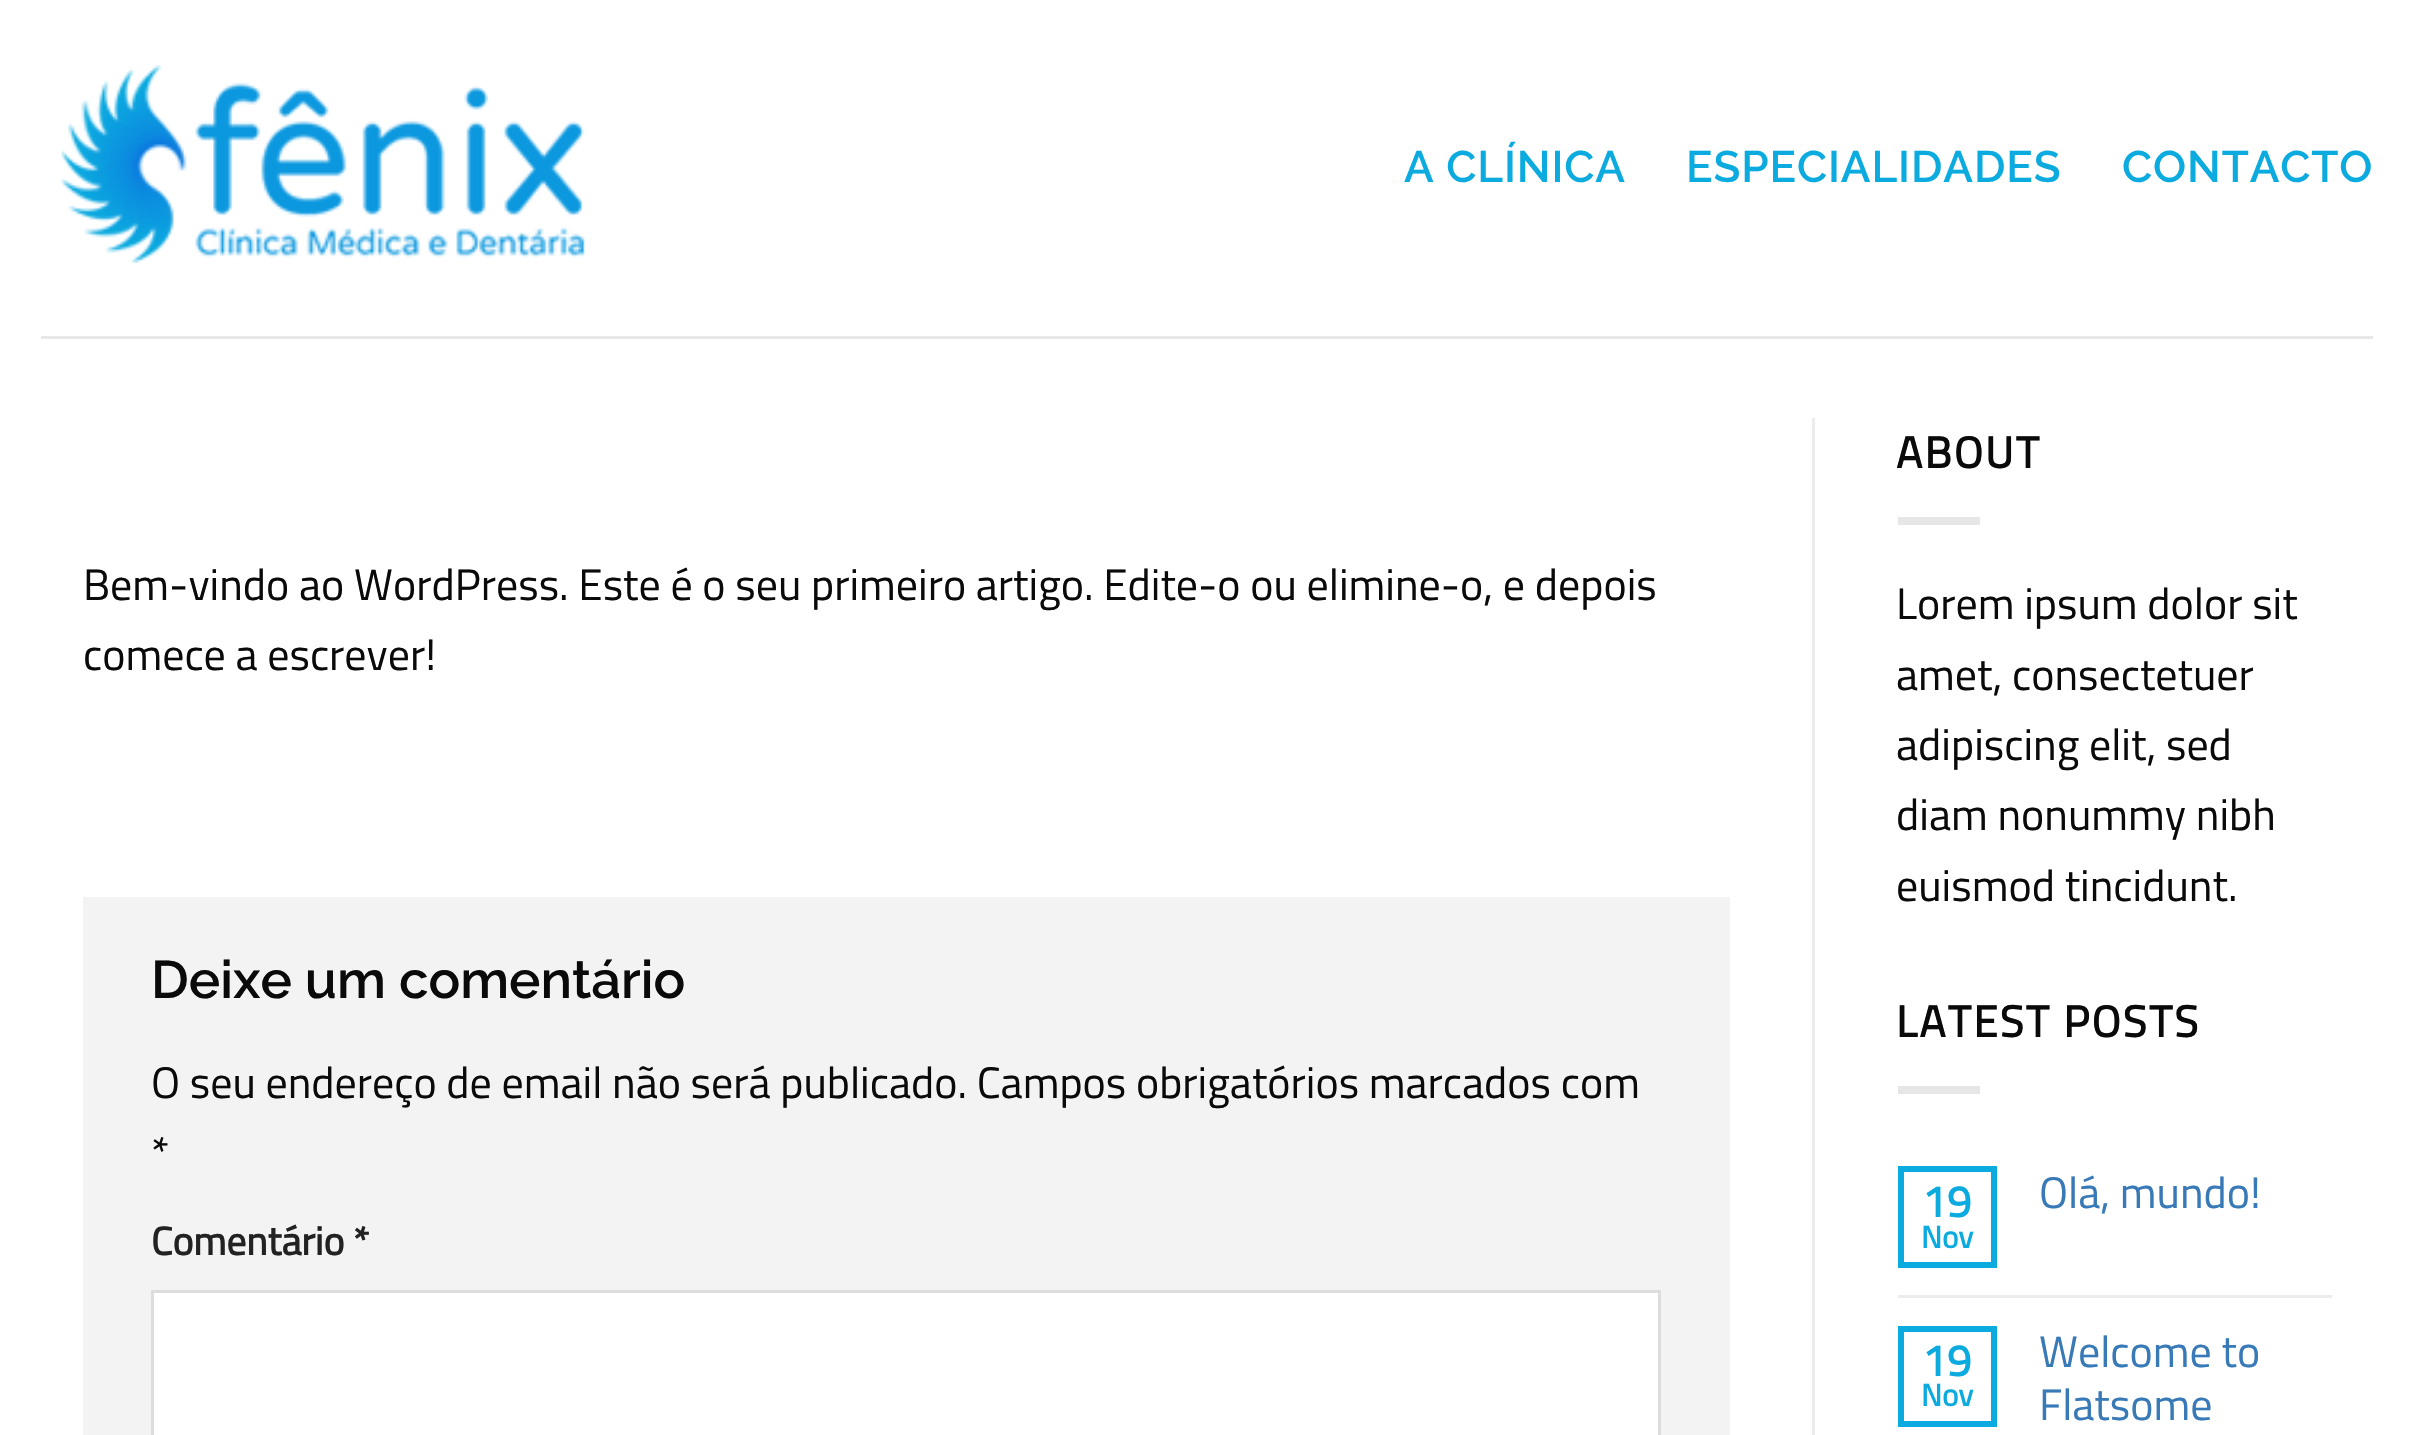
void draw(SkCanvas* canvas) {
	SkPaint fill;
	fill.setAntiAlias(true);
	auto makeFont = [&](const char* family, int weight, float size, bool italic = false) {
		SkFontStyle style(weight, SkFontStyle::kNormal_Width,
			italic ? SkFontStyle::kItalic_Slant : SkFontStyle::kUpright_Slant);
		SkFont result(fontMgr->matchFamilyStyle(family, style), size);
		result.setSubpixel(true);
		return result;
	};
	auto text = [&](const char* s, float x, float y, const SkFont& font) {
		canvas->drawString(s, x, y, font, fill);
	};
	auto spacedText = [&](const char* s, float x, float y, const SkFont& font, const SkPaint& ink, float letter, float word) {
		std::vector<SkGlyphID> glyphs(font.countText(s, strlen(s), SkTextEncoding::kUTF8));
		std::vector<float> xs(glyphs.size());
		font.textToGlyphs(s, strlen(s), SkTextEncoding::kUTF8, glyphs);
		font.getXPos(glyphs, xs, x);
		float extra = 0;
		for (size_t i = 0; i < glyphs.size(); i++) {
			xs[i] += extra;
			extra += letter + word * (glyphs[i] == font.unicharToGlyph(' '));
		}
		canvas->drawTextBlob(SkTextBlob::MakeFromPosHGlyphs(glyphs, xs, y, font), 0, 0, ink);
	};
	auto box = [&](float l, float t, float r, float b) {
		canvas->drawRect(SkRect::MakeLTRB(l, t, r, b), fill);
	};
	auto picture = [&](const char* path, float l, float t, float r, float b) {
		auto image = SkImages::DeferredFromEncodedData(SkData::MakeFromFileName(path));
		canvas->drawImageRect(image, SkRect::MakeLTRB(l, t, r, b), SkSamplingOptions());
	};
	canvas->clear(0xFFFFFFFF);
	picture("image0.png", 61, 65, 585, 264);
	fill.setColor(0xFFE7E7E7);
	box(41, 336, 2373, 339);
	fill.setColor(0xFFF3F3F3);
	box(83, 897, 1730, 1435);
	fill.setColor(0xFFFFFFFF);
	canvas->drawRect(SkRect::MakeLTRB(152.5f, 1291.5f, 1659.5f, 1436.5f), fill);
	fill.setStyle(SkPaint::kStroke_Style);
	fill.setStrokeWidth(3);
	fill.setColor(0xFFDDDDDD);
	canvas->drawRect(SkRect::MakeLTRB(152.5f, 1291.5f, 1659.5f, 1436.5f), fill);
	fill.setStyle(SkPaint::kFill_Style);
	fill.setColor(0xFFECECEC);
	box(1812, 418, 1815, 1435);
	fill.setColor(0xFFE6E6E6);
	box(1898, 517, 1980, 525);
	box(1898, 1086, 1980, 1094);
	fill.setStyle(SkPaint::kStroke_Style);
	fill.setStrokeWidth(6);
	fill.setColor(0xFF0BABDF);
	canvas->drawRect(SkRect::MakeLTRB(1901, 1169, 1994, 1265), fill);
	fill.setStyle(SkPaint::kFill_Style);
	fill.setColor(0xFFECECEC);
	box(1898, 1295, 2332, 1298);
	fill.setStyle(SkPaint::kStroke_Style);
	fill.setColor(0xFF0BABDF);
	canvas->drawRect(SkRect::MakeLTRB(1901, 1329, 1994, 1424), fill);
	auto font1 = makeFont("Raleway", 600, 44);
	fill.setStyle(SkPaint::kFill_Style);
	spacedText("A CLÍNICA", 1404, 182, font1, fill, 0.9f, 0);
	spacedText("ESPECIALIDADES", 1686, 182, font1, fill, 0.9f, 0);
	spacedText("CONTACTO", 2122, 182, font1, fill, 0.9f, 0);
	auto font2 = makeFont("Titillium Web", 400, 44);
	fill.setColor(0xFF0A0A0A);
	text("Bem-vindo ao WordPress. Este é o seu primeiro artigo. Edite-o ou elimine-o, e depois", 83, 600, font2);
	text("comece a escrever!", 83, 670, font2);
	auto font3 = makeFont("Raleway", 600, 52.75f);
	text("Deixe um comentário", 151, 998, font3);
	text("O seu endereço de email não será publicado. Campos obrigatórios marcados com", 151, 1098, font2);
	text("*", 151, 1168, font2);
	auto font4 = makeFont("Titillium Web", 700, 39.5f);
	fill.setColor(0xFF222222);
	text("Comentário *", 151, 1255, font4);
	auto font5 = makeFont("Titillium Web", 700, 44);
	fill.setColor(0xFF0A0A0A);
	spacedText("ABOUT", 1896, 468, font5, fill, 2.25f, 0);
	text("Lorem ipsum dolor sit", 1896, 619, font2);
	text("amet, consectetuer", 1896, 690, font2);
	text("adipiscing elit, sed", 1896, 760, font2);
	text("diam nonummy nibh", 1896, 830, font2);
	text("euismod tincidunt.", 1896, 901, font2);
	spacedText("LATEST POSTS", 1896, 1037, font5, fill, 2.25f, 0);
	fill.setColor(0xFF0BABDF);
	text("19", 1922, 1217, font5);
	auto font6 = makeFont("Titillium Web", 700, 31);
	text("Nov", 1921, 1248, font6);
	fill.setColor(0xFF3879B7);
	text("Olá, mundo!", 2039, 1208, font2);
	fill.setColor(0xFF0BABDF);
	text("19", 1922, 1376, font5);
	text("Nov", 1921, 1406, font6);
	fill.setColor(0xFF3879B7);
	text("Welcome to", 2039, 1367, font2);
	text("Flatsome", 2039, 1420, font2);
}
